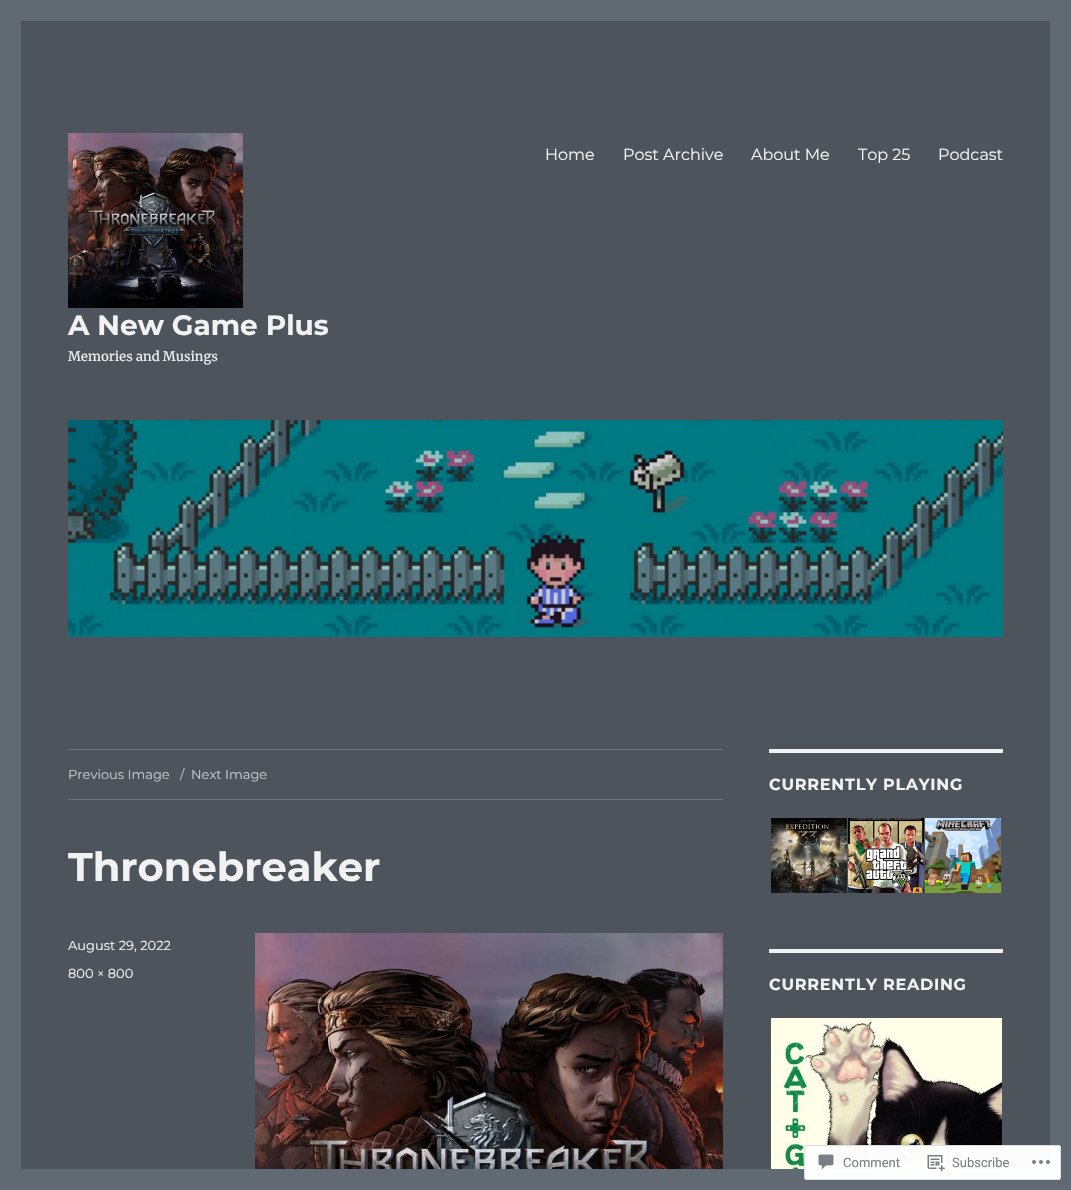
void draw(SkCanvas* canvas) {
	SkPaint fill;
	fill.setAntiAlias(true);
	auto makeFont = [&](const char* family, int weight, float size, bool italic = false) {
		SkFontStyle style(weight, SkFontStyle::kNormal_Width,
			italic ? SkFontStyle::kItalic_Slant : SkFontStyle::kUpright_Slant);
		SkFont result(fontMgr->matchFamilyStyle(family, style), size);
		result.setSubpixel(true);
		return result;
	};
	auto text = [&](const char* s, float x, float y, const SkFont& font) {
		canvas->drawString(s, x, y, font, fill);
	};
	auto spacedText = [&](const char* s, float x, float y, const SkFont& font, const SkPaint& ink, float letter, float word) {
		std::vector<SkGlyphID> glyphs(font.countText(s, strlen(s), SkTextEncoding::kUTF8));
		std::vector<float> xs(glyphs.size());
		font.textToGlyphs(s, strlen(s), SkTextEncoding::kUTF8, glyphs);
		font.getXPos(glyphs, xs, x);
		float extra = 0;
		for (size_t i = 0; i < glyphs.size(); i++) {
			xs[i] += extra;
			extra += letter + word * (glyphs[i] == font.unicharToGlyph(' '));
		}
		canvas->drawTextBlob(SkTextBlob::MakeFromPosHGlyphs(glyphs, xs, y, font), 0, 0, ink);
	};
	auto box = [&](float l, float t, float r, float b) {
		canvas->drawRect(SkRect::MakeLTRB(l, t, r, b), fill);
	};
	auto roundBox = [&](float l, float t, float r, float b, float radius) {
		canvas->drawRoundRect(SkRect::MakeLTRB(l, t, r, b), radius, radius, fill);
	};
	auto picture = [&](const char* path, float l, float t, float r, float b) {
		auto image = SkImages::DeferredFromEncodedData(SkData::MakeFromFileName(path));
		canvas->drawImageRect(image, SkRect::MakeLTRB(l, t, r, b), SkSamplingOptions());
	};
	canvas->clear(0xFF616A73);
	fill.setColor(0xFF4D545C);
	box(21, 21, 1050, 1169);
	picture("image0.png", 68, 133, 243, 308);
	picture("image1.png", 68, 420, 1003, 637);
	fill.setColor(0xFF6E747A);
	box(68, 749, 723, 750);
	box(68, 799, 723, 800);
	picture("image2.png", 255, 933, 723, 1169);
	fill.setColor(0xFFF2F2F2);
	box(769, 749, 1003, 753);
	picture("image3.png", 771, 818, 847, 893);
	picture("image4.png", 848, 818, 924, 893);
	picture("image5.png", 925, 818, 1001, 893);
	box(769, 949, 1003, 953);
	picture("image6.png", 771, 1018, 1002, 1169);
	fill.setColor(0xFAFFFFFF);
	roundBox(804, 1145, 1061, 1180, 3);
	fill.setStyle(SkPaint::kStroke_Style);
	fill.setStrokeWidth(1);
	fill.setColor(0xFADCDCDE);
	canvas->drawRoundRect(SkRect::MakeLTRB(804.5f, 1145.5f, 1060.5f, 1179.5f), 2.5f, 2.5f, fill);
	picture("image7.png", 818, 1154, 834, 1170);
	picture("image8.png", 927, 1155, 945, 1172);
	picture("image9.png", 1032, 1160, 1050, 1164);
	auto font1 = makeFont("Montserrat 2", 100, 16);
	fill.setStyle(SkPaint::kFill_Style);
	fill.setColor(0xFFF2F2F2);
	text("Home", 545, 160, font1);
	text("Post Archive", 623, 160, font1);
	text("About Me", 751, 160, font1);
	text("Top 25", 858, 160, font1);
	text("Podcast", 938, 160, font1);
	auto font2 = makeFont("Montserrat", 100, 28);
	text("A New Game Plus", 68, 335, font2);
	auto font3 = makeFont("Merriweather", 400, 13);
	text("Memories and Musings", 68, 361, font3);
	auto font4 = makeFont("Montserrat 2", 100, 13);
	fill.setColor(0xFFC7C7C7);
	text("Previous Image", 68, 779, font4);
	fill.setColor(0xFFC1C3C5);
	text("/", 180, 779, font4);
	fill.setColor(0xFFC7C7C7);
	text("Next Image", 191, 779, font4);
	auto font5 = makeFont("Montserrat", 100, 40);
	fill.setColor(0xFFF2F2F2);
	text("Thronebreaker", 68, 881, font5);
	text("August 29, 2022", 68, 950, font4);
	text("800 × 800", 68, 978, font4);
	auto font6 = makeFont("Montserrat", 100, 16);
	spacedText("CURRENTLY PLAYING", 769, 790, font6, fill, 0.75f, 0);
	spacedText("CURRENTLY READING", 769, 990, font6, fill, 0.75f, 0);
	auto font7 = makeFont("Roboto", 400, 13);
	fill.setColor(0xFF7B7F84);
	text("Comment", 843, 1167, font7);
	text("Subscribe", 952, 1167, font7);
}
